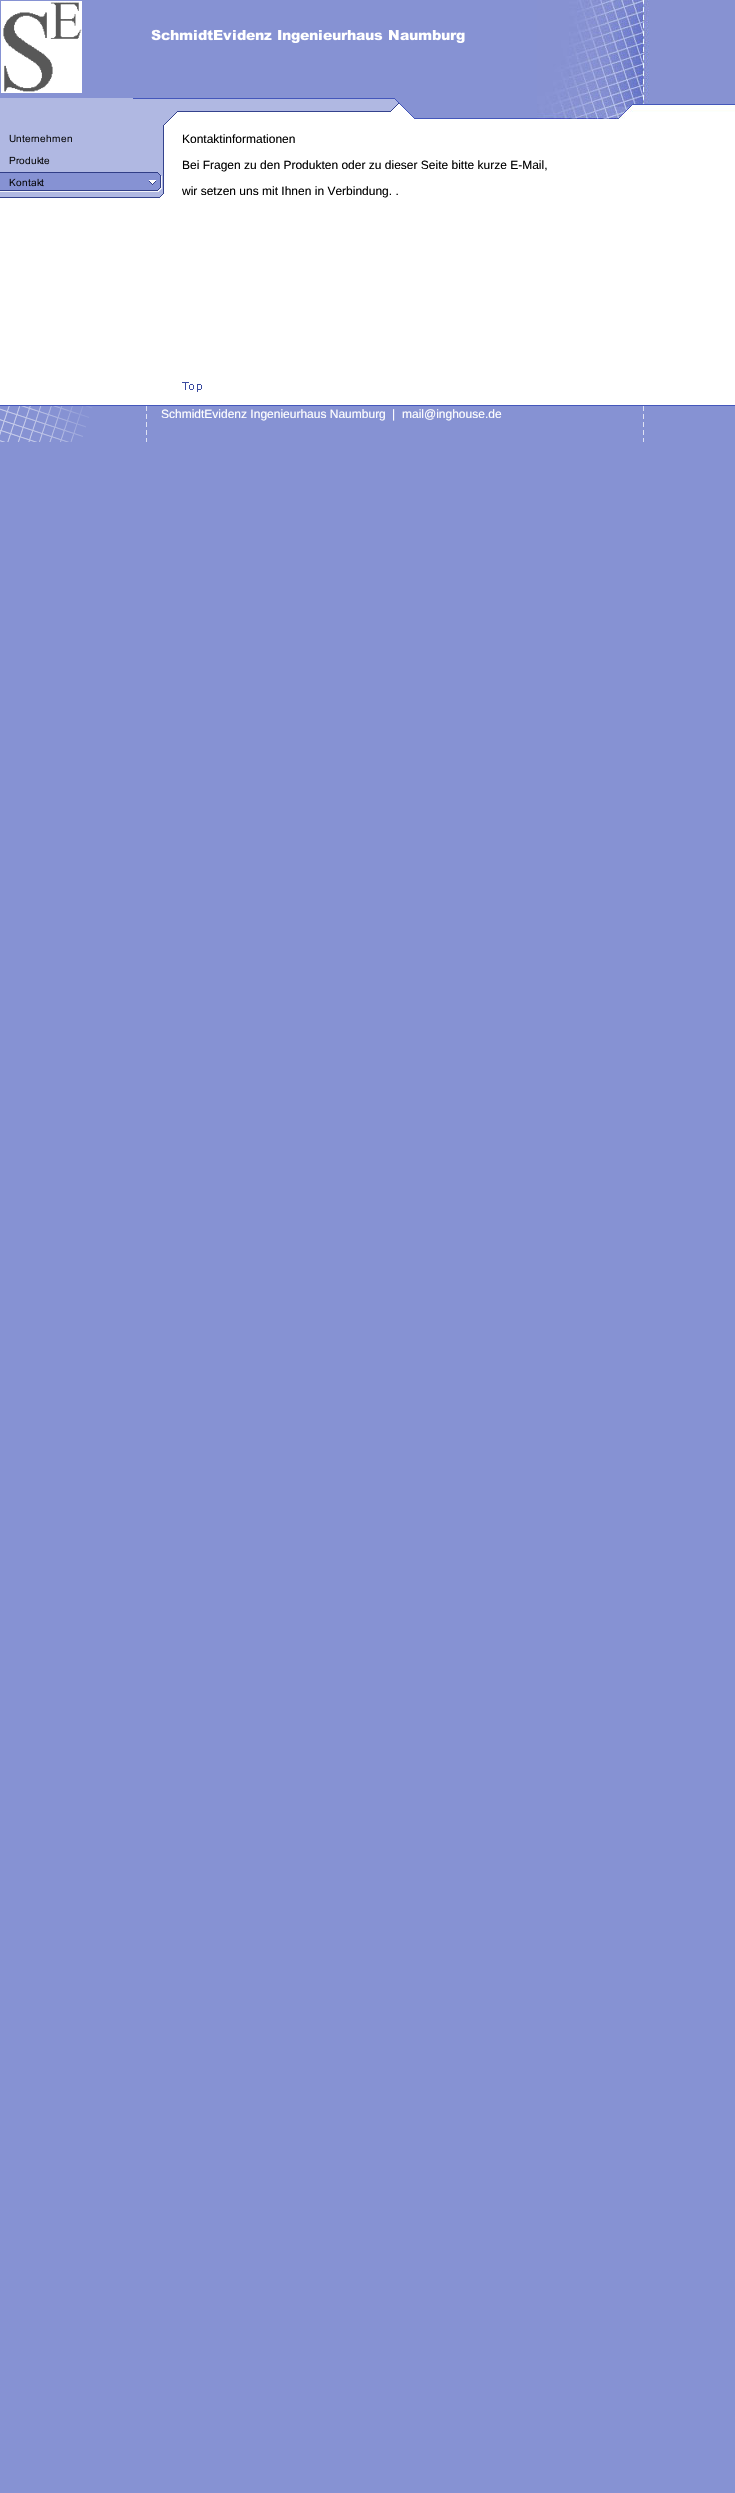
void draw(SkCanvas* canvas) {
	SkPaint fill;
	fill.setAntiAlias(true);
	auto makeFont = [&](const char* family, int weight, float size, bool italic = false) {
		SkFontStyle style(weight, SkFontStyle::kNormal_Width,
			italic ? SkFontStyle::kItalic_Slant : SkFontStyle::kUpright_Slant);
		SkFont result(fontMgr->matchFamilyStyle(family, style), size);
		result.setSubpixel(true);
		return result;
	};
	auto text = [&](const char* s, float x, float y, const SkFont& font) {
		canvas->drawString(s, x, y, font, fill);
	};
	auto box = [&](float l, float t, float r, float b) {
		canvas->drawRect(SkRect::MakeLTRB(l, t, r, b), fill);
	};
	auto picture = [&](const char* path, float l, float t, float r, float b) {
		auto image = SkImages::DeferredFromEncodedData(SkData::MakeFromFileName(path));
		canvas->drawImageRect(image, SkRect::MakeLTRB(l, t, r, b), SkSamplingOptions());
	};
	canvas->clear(0xFF8692D3);
	fill.setColor(0xFFB0B8E2);
	box(0, 98, 133, 119);
	picture("image0.png", 1, 1, 82, 93);
	fill.setColor(0xFF4457BB);
	box(465, 118, 537, 119);
	picture("image1.png", 133, 29, 465, 119);
	picture("image2.png", 537, 0, 735, 119);
	fill.setColor(0xFFFFFFFF);
	box(0, 119, 735, 405);
	picture("image3.png", 0, 119, 170, 128);
	picture("image4.png", 0, 128, 164, 150);
	picture("image5.png", 0, 150, 164, 172);
	picture("image6.png", 0, 172, 164, 194);
	picture("image7.png", 0, 194, 163, 198);
	picture("image8.png", 182, 382, 202, 392);
	fill.setColor(0xFF4457BB);
	box(0, 405, 735, 406);
	picture("image9.png", 0, 406, 147, 442);
	picture("image10.png", 643, 406, 644, 442);
	auto font1 = makeFont("Liberation Sans", 400, 12);
	fill.setColor(0xFF000000);
	text("Kontaktinformationen", 182, 143, font1);
	text("Bei Fragen zu den Produkten oder zu dieser Seite bitte kurze E-Mail,", 182, 169, font1);
	text("wir setzen uns mit Ihnen in Verbindung. .", 182, 195, font1);
	fill.setColor(0xFFFFFFFF);
	text("SchmidtEvidenz Ingenieurhaus Naumburg", 161, 418, font1);
	text("|", 392, 418, font1);
	text("mail@inghouse.de", 402, 418, font1);
}
